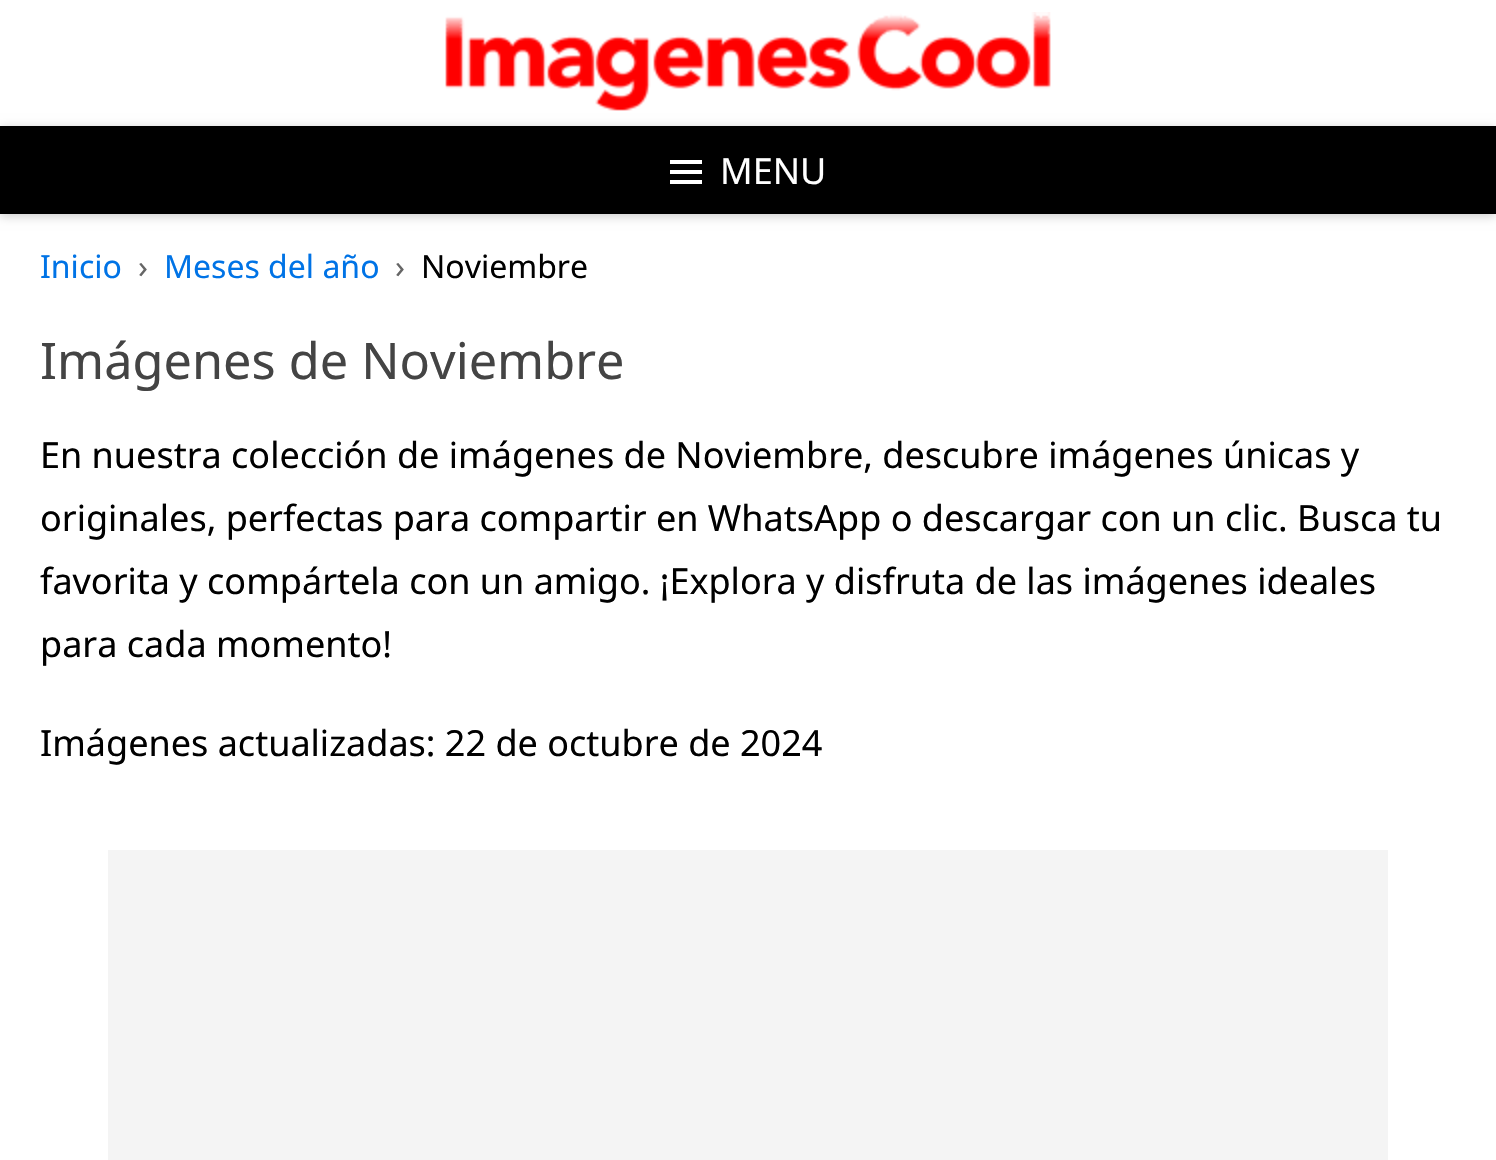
void draw(SkCanvas* canvas) {
	SkPaint fill;
	fill.setAntiAlias(true);
	auto makeFont = [&](const char* family, int weight, float size, bool italic = false) {
		SkFontStyle style(weight, SkFontStyle::kNormal_Width,
			italic ? SkFontStyle::kItalic_Slant : SkFontStyle::kUpright_Slant);
		SkFont result(fontMgr->matchFamilyStyle(family, style), size);
		result.setSubpixel(true);
		return result;
	};
	auto text = [&](const char* s, float x, float y, const SkFont& font) {
		canvas->drawString(s, x, y, font, fill);
	};
	auto box = [&](float l, float t, float r, float b) {
		canvas->drawRect(SkRect::MakeLTRB(l, t, r, b), fill);
	};
	auto picture = [&](const char* path, float l, float t, float r, float b) {
		auto image = SkImages::DeferredFromEncodedData(SkData::MakeFromFileName(path));
		canvas->drawImageRect(image, SkRect::MakeLTRB(l, t, r, b), SkSamplingOptions());
	};
	canvas->clear(0xFFFFFFFF);
	picture("image0.png", 445, 12, 1051, 111);
	fill.setColor(0x33000000);
	fill.setMaskFilter(SkMaskFilter::MakeBlur(kNormal_SkBlurStyle, 5));
	canvas->drawRect(SkRect::MakeLTRB(0, 128, 1496, 216), fill);
	fill.setMaskFilter(nullptr);
	fill.setColor(0xFF000000);
	box(0, 126, 1496, 214);
	picture("image1.png", 670, 160, 702, 184);
	fill.setColor(0xFFF4F4F4);
	box(108, 850, 1388, 1160);
	auto font1 = makeFont("Noto Sans", 400, 36);
	fill.setColor(0xFFFFFFFF);
	text("MENU", 720, 184, font1);
	auto font2 = makeFont("Noto Sans", 400, 32);
	fill.setColor(0xFF0073E6);
	text("Inicio", 40, 278, font2);
	fill.setColor(0xFF666666);
	text("›", 138, 278, font2);
	fill.setColor(0xFF0073E6);
	text("Meses del año", 164, 278, font2);
	fill.setColor(0xFF666666);
	text("›", 395, 278, font2);
	fill.setColor(0xFF000000);
	text("Noviembre", 421, 278, font2);
	auto font3 = makeFont("Noto Sans", 400, 50.4f);
	fill.setColor(0xFF444444);
	text("Imágenes de Noviembre", 40, 379, font3);
	fill.setColor(0xFF000000);
	text("En nuestra colección de imágenes de Noviembre, descubre imágenes únicas y", 40, 468, font1);
	text("originales, perfectas para compartir en WhatsApp o descargar con un clic. Busca tu", 40, 531, font1);
	text("favorita y compártela con un amigo. ¡Explora y disfruta de las imágenes ideales", 40, 594, font1);
	text("para cada momento!", 40, 657, font1);
	text("Imágenes actualizadas: 22 de octubre de 2024", 40, 756, font1);
}
